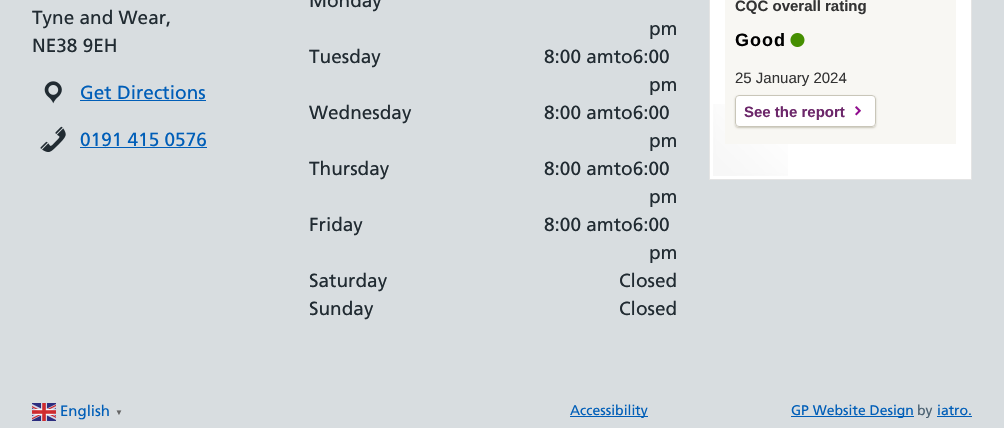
void draw(SkCanvas* canvas) {
	SkPaint fill;
	fill.setAntiAlias(true);
	auto makeFont = [&](const char* family, int weight, float size, bool italic = false) {
		SkFontStyle style(weight, SkFontStyle::kNormal_Width,
			italic ? SkFontStyle::kItalic_Slant : SkFontStyle::kUpright_Slant);
		SkFont result(fontMgr->matchFamilyStyle(family, style), size);
		result.setSubpixel(true);
		return result;
	};
	auto text = [&](const char* s, float x, float y, const SkFont& font) {
		canvas->drawString(s, x, y, font, fill);
	};
	auto spacedText = [&](const char* s, float x, float y, const SkFont& font, const SkPaint& ink, float letter, float word) {
		std::vector<SkGlyphID> glyphs(font.countText(s, strlen(s), SkTextEncoding::kUTF8));
		std::vector<float> xs(glyphs.size());
		font.textToGlyphs(s, strlen(s), SkTextEncoding::kUTF8, glyphs);
		font.getXPos(glyphs, xs, x);
		float extra = 0;
		for (size_t i = 0; i < glyphs.size(); i++) {
			xs[i] += extra;
			extra += letter + word * (glyphs[i] == font.unicharToGlyph(' '));
		}
		canvas->drawTextBlob(SkTextBlob::MakeFromPosHGlyphs(glyphs, xs, y, font), 0, 0, ink);
	};
	auto box = [&](float l, float t, float r, float b) {
		canvas->drawRect(SkRect::MakeLTRB(l, t, r, b), fill);
	};
	auto roundBox = [&](float l, float t, float r, float b, float radius) {
		canvas->drawRoundRect(SkRect::MakeLTRB(l, t, r, b), radius, radius, fill);
	};
	auto picture = [&](const char* path, float l, float t, float r, float b) {
		auto image = SkImages::DeferredFromEncodedData(SkData::MakeFromFileName(path));
		canvas->drawImageRect(image, SkRect::MakeLTRB(l, t, r, b), SkSamplingOptions());
	};
	canvas->clear(0xFFD8DDE0);
	picture("image0.png", 44, 81, 62, 104);
	fill.setColor(0xFF005EB8);
	box(80, 100, 206, 101);
	picture("image1.png", 40, 126, 66, 152);
	box(80, 147, 207, 148);
	fill.setColor(0xFFFFFFFF);
	box(710, 0, 971, 179);
	picture("image2.png", 713, 104, 788, 176);
	fill.setStyle(SkPaint::kStroke_Style);
	fill.setStrokeWidth(1);
	fill.setColor(0xFFE4E4E4);
	canvas->drawRect(SkRect::MakeLTRB(709.5f, -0.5f, 971.5f, 179.5f), fill);
	fill.setStyle(SkPaint::kFill_Style);
	fill.setColor(0xFFF8F7F3);
	box(725, 0, 956, 144);
	picture("image3.png", 790, 33, 805, 47);
	fill.setColor(0xFFC9C6B9);
	fill.setMaskFilter(SkMaskFilter::MakeBlur(kNormal_SkBlurStyle, 1));
	canvas->drawRoundRect(SkRect::MakeLTRB(735, 96, 876, 128), 4, 4, fill);
	fill.setMaskFilter(nullptr);
	fill.setColor(0xFFFFFFFF);
	roundBox(735, 95, 876, 127, 4);
	picture("image4.png", 855, 106, 861, 116);
	fill.setStyle(SkPaint::kStroke_Style);
	fill.setColor(0xFFC9C6B9);
	canvas->drawRoundRect(SkRect::MakeLTRB(735.5f, 95.5f, 875.5f, 126.5f), 3.5f, 3.5f, fill);
	picture("image5.png", 32, 403, 56, 421);
	fill.setStyle(SkPaint::kFill_Style);
	fill.setColor(0xFF005EB8);
	box(570, 416, 648, 417);
	box(791, 416, 914, 417);
	box(937, 416, 972, 417);
	auto font1 = makeFont("Frutiger", 400, 19);
	fill.setColor(0xFF212B32);
	text("Tyne and Wear,", 32, 24, font1);
	text("NE38 9EH", 32, 52, font1);
	fill.setColor(0xFF005EB8);
	text("Get Directions", 80, 99, font1);
	text("0191 415 0576", 80, 146, font1);
	fill.setColor(0xFF212B32);
	text("Monday", 309, 7, font1);
	text("pm", 649, 35, font1);
	text("Tuesday", 309, 63, font1);
	text("8:00 am to 6:00", 544, 63, font1);
	text("pm", 649, 91, font1);
	text("Wednesday", 309, 119, font1);
	text("8:00 am to 6:00", 544, 119, font1);
	text("pm", 649, 147, font1);
	text("Thursday", 309, 175, font1);
	text("8:00 am to 6:00", 544, 175, font1);
	text("pm", 649, 203, font1);
	text("Friday", 309, 231, font1);
	text("8:00 am to 6:00", 544, 231, font1);
	text("pm", 649, 259, font1);
	text("Saturday", 309, 287, font1);
	text("Closed", 619, 287, font1);
	text("Sunday", 309, 315, font1);
	text("Closed", 619, 315, font1);
	auto font2 = makeFont("Liberation Sans", 700, 15);
	fill.setColor(0xFF333333);
	text("CQC overall rating", 735, 11, font2);
	auto font3 = makeFont("Liberation Sans", 700, 18);
	fill.setColor(0xFF000000);
	spacedText("Good", 735, 46, font3, fill, 1, 0);
	auto font4 = makeFont("Liberation Sans", 400, 15);
	fill.setColor(0xFF333333);
	text("25 January 2024", 735, 83, font4);
	fill.setColor(0xFF6C276A);
	text("See the report", 744, 117, font2);
	auto font5 = makeFont("Frutiger", 400, 15);
	fill.setColor(0xFF005EB8);
	text("English", 60, 416, font5);
	auto font6 = makeFont("Liberation Sans", 700, 8);
	fill.setColor(0xFF666666);
	text("▼", 115, 415, font6);
	auto font7 = makeFont("Frutiger", 400, 14);
	fill.setColor(0xFF005EB8);
	text("Accessibility", 570, 415, font7);
	text("GP Website Design", 791, 415, font7);
	fill.setColor(0xFF4C6272);
	text("by", 917, 415, font7);
	fill.setColor(0xFF005EB8);
	text("iatro.", 937, 415, font7);
}
